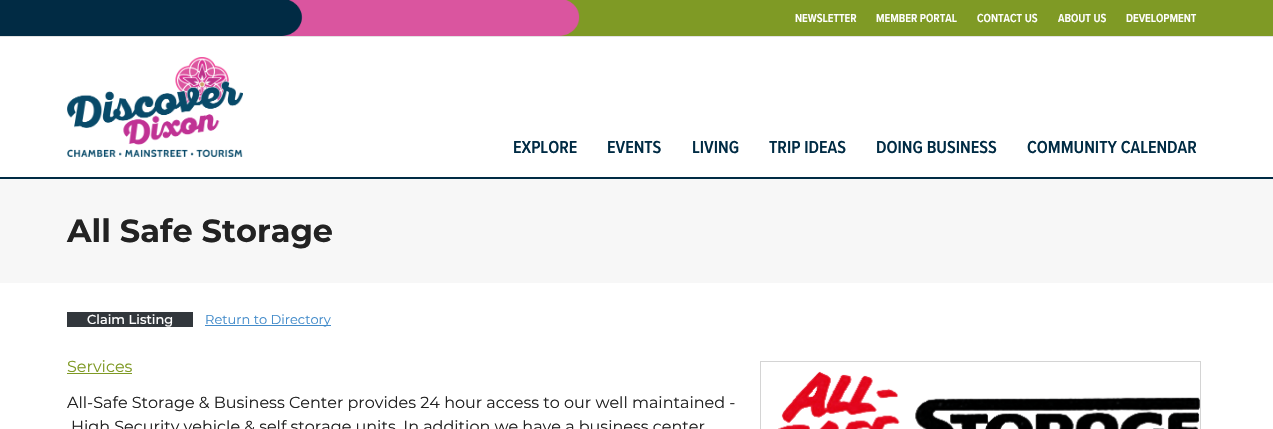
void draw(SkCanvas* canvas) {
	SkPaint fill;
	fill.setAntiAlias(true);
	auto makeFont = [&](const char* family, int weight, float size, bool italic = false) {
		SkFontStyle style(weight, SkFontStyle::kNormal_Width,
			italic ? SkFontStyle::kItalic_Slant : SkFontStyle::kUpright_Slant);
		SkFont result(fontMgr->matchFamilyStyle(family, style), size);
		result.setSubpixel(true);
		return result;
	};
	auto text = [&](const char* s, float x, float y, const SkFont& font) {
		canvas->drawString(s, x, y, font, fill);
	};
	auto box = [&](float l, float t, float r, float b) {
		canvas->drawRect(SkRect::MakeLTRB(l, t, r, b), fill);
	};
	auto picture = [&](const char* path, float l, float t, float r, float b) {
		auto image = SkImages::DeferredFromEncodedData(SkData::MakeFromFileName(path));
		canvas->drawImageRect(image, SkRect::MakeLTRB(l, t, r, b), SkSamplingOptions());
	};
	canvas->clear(0xFFFFFFFF);
	picture("image0.png", 0, 0, 1273, 36);
	fill.setColor(0xFFE3E3E3);
	box(0, 36, 1273, 37);
	fill.setColor(0xFF002B44);
	box(0, 177, 1273, 179);
	picture("image1.png", 67, 57, 243, 157);
	fill.setColor(0xFFF7F7F7);
	box(0, 179, 1273, 283);
	fill.setColor(0xFF32373C);
	box(67, 312, 193, 327);
	fill.setColor(0xFF428BCA);
	box(205, 325, 331, 326);
	fill.setColor(0xFF7F9A25);
	box(67, 373, 132, 374);
	fill.setStyle(SkPaint::kStroke_Style);
	fill.setStrokeWidth(1);
	fill.setColor(0xFFD4D4D4);
	canvas->drawRect(SkRect::MakeLTRB(760.5f, 361.5f, 1200.5f, 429.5f), fill);
	picture("image2.png", 778, 371, 1200, 429);
	auto font1 = makeFont("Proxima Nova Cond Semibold", 600, 12);
	fill.setStyle(SkPaint::kFill_Style);
	fill.setColor(0xFFFFFFFF);
	text("NEWSLETTER", 795, 22, font1);
	text("MEMBER PORTAL", 876, 22, font1);
	text("CONTACT US", 977, 22, font1);
	text("ABOUT US", 1058, 22, font1);
	text("DEVELOPMENT", 1126, 22, font1);
	auto font2 = makeFont("Proxima Nova Cond Semibold", 600, 18);
	fill.setColor(0xFF002B44);
	text("EXPLORE", 513, 153, font2);
	text("EVENTS", 607, 153, font2);
	text("LIVING", 692, 153, font2);
	text("TRIP IDEAS", 769, 153, font2);
	text("DOING BUSINESS", 876, 153, font2);
	text("COMMUNITY CALENDAR", 1027, 153, font2);
	auto font3 = makeFont("Montserrat", 700, 32);
	fill.setColor(0xFF222222);
	text("All Safe Storage", 67, 242, font3);
	auto font4 = makeFont("Montserrat", 500, 13);
	fill.setColor(0xFFFFFFFF);
	text("Claim Listing", 87, 324, font4);
	auto font5 = makeFont("Montserrat", 400, 13);
	fill.setColor(0xFF428BCA);
	text("Return to Directory", 205, 324, font5);
	auto font6 = makeFont("Montserrat", 400, 16);
	fill.setColor(0xFF7F9A25);
	text("Services", 67, 372, font6);
	fill.setColor(0xFF222222);
	text("All-Safe Storage & Business Center provides 24 hour access to our well maintained -", 67, 408, font6);
	text("High Security vehicle & self storage units. In addition we have a business center", 71, 432, font6);
}
